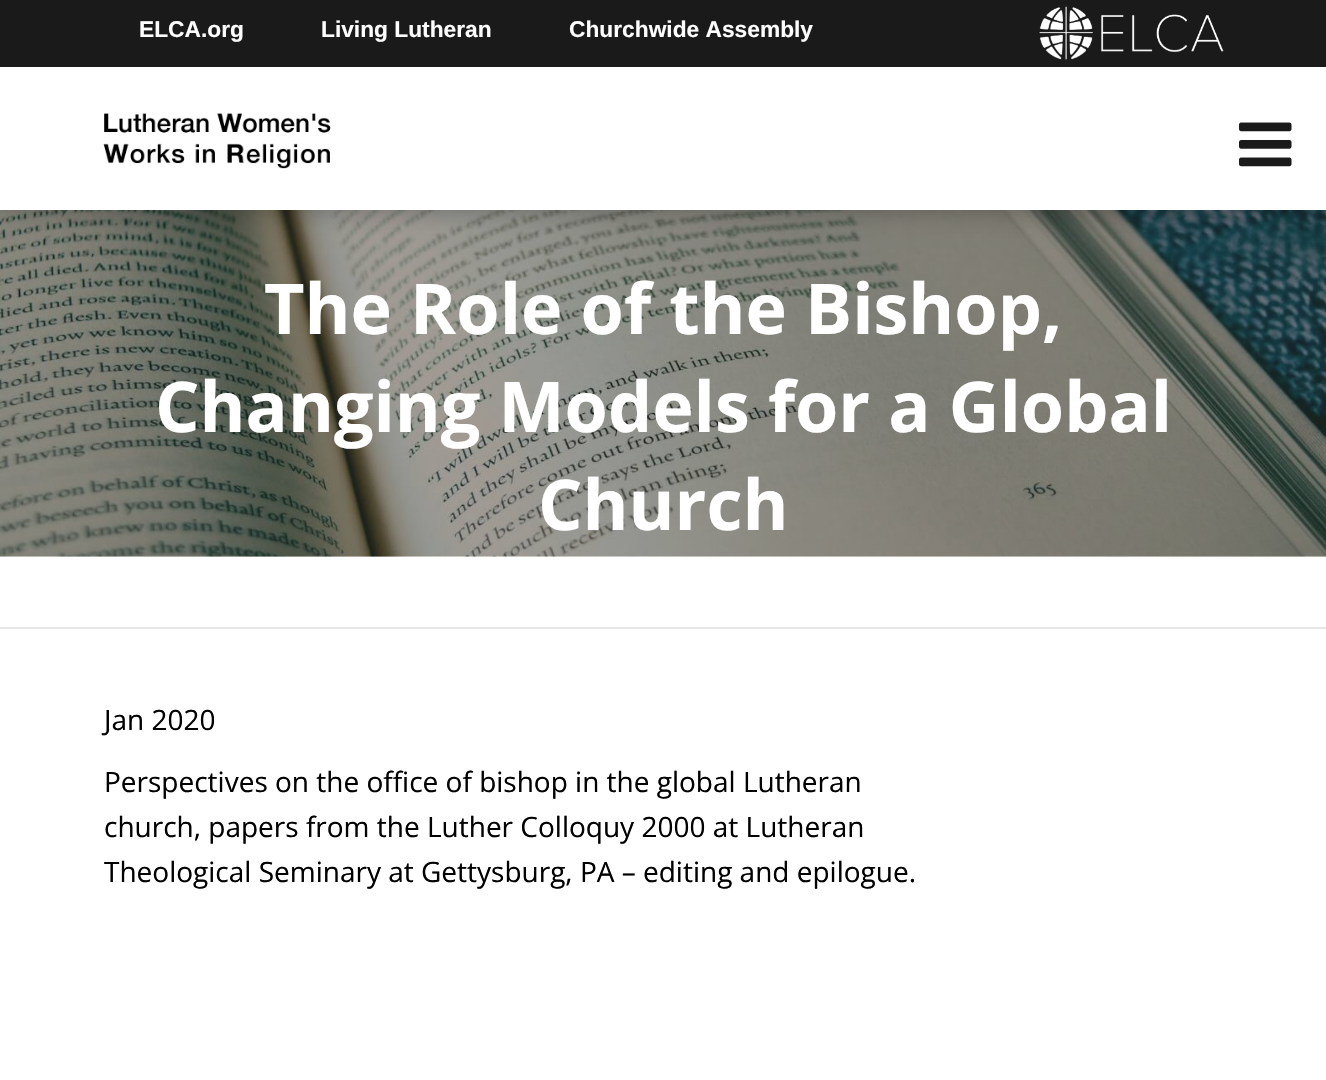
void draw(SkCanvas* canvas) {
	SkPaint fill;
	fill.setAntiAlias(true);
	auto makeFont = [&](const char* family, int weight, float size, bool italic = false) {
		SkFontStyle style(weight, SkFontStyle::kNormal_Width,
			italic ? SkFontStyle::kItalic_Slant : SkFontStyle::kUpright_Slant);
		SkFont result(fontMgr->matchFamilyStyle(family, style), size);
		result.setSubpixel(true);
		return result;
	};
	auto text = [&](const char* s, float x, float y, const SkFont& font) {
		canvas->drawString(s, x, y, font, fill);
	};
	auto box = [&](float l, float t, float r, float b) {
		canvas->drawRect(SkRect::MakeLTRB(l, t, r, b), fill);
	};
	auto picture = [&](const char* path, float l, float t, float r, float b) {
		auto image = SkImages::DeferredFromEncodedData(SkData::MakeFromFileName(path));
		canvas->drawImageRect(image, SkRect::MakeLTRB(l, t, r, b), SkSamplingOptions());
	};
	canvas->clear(0xFFFFFFFF);
	picture("image3.png", 0, 210, 1326, 557);
	fill.setColor(0x4D000000);
	fill.setMaskFilter(SkMaskFilter::MakeBlur(kNormal_SkBlurStyle, 13));
	canvas->drawRect(SkRect::MakeLTRB(0, 0, 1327, 210), fill);
	fill.setMaskFilter(nullptr);
	fill.setColor(0xFFFFFFFF);
	box(0, 67, 1326, 210);
	fill.setColor(0xFF1A1A1B);
	box(0, 0, 1326, 67);
	picture("image0.png", 1039, 6, 1224, 60);
	picture("image1.png", 103, 113, 331, 169);
	picture("image2.png", 1239, 122, 1292, 167);
	fill.setColor(0xFFE6E6E6);
	box(0, 627, 1326, 629);
	auto font1 = makeFont("Liberation Sans", 700, 22.75f);
	fill.setColor(0xFFFFFFFF);
	text("ELCA.org", 139, 37, font1);
	text("Living Lutheran", 321, 37, font1);
	text("Churchwide Assembly", 569, 37, font1);
	auto font2 = makeFont("Open Sans", 700, 70);
	text("The Role of the Bishop,", 264, 334, font2);
	text("Changing Models for a Global", 155, 432, font2);
	text("Church", 538, 530, font2);
	auto font3 = makeFont("Open Sans", 400, 28);
	fill.setColor(0xFF000000);
	text("Jan 2020", 104, 730, font3);
	text("Perspectives on the office of bishop in the global Lutheran", 104, 792, font3);
	text("church, papers from the Luther Colloquy 2000 at Lutheran", 104, 837, font3);
	text("Theological Seminary at Gettysburg, PA – editing and epilogue.", 104, 882, font3);
}
